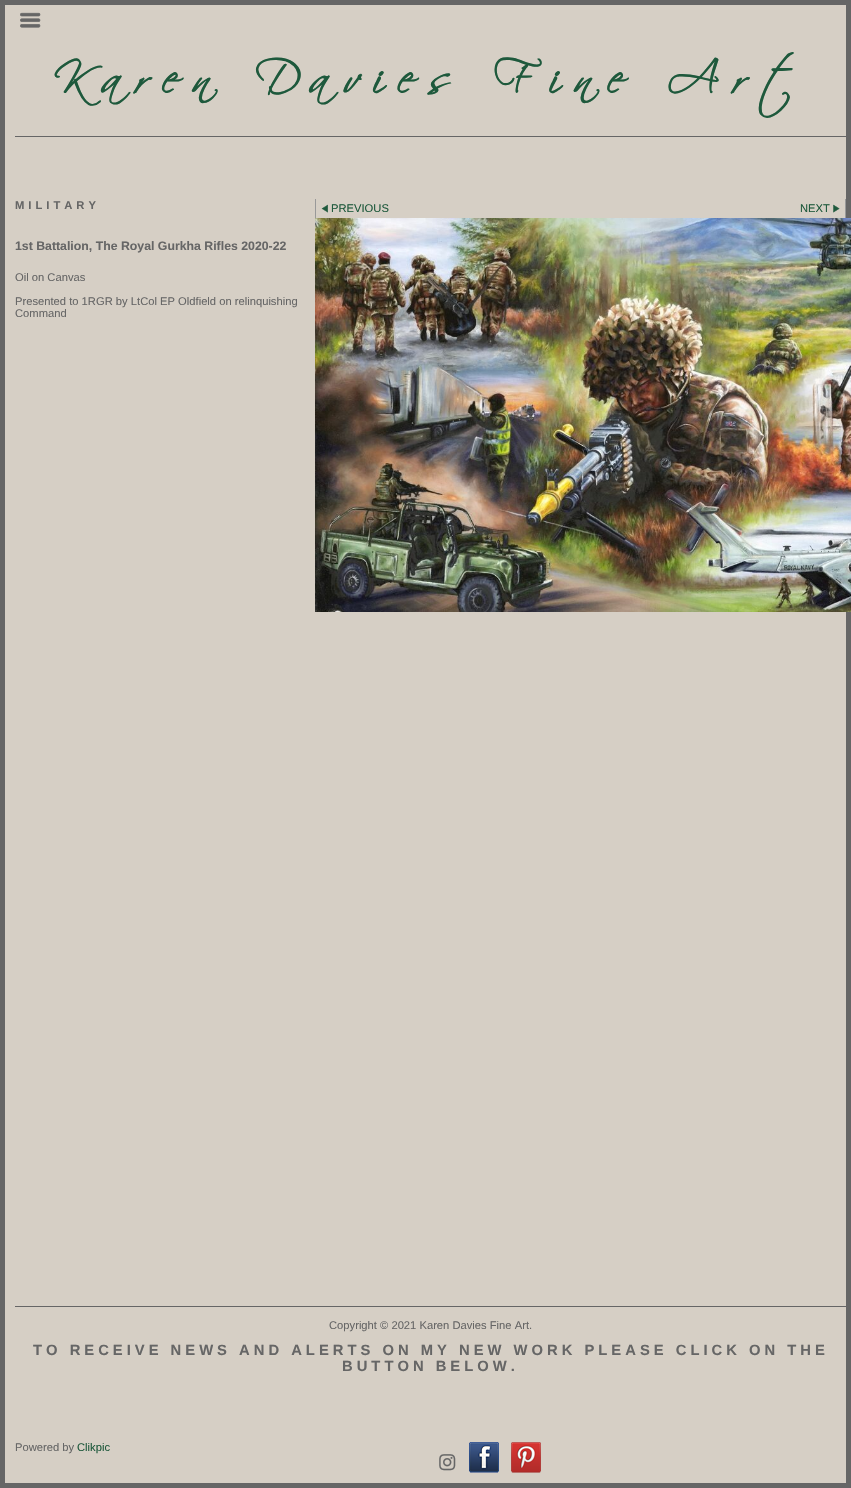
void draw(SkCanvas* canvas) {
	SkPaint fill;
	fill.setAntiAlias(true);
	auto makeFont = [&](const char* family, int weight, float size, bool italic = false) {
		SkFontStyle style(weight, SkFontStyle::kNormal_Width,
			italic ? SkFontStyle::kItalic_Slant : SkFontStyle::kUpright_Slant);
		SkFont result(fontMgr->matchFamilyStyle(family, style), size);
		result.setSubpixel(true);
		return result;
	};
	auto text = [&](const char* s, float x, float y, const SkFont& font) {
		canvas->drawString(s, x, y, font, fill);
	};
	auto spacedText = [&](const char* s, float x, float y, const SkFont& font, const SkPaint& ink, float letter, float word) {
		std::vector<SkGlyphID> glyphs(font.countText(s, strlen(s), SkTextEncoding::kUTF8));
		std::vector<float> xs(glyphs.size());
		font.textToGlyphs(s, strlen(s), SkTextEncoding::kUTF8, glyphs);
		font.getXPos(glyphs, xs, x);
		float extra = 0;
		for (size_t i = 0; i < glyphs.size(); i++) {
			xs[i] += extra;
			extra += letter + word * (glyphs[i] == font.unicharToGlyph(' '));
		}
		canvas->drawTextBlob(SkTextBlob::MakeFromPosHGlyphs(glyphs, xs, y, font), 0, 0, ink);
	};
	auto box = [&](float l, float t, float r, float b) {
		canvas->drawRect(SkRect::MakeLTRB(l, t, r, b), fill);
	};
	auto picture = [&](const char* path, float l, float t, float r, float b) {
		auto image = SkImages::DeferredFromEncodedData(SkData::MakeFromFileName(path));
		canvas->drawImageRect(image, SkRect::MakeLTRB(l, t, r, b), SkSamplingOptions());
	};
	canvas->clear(0xFFD6CFC5);
	fill.setStyle(SkPaint::kStroke_Style);
	fill.setStrokeWidth(5);
	fill.setColor(0xFF666666);
	canvas->drawRect(SkRect::MakeLTRB(2.5f, 2.5f, 848.5f, 1485.5f), fill);
	fill.setStyle(SkPaint::kFill_Style);
	box(15, 136, 846, 137);
	picture("image0.png", 20, 12, 41, 28);
	fill.setColor(0xFF999999);
	box(315, 199, 316, 218);
	picture("image1.png", 321, 204, 328, 213);
	box(845, 199, 846, 218);
	picture("image2.png", 833, 204, 840, 213);
	picture("image3.png", 315, 218, 851, 612);
	fill.setColor(0xFF666666);
	box(15, 1306, 846, 1307);
	picture("image4.png", 439, 1454, 456, 1471);
	picture("image5.png", 469, 1442, 499, 1473);
	picture("image6.png", 511, 1442, 541, 1473);
	auto font1 = makeFont("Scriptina", 700, 44.75f);
	fill.setColor(0xFF1E593C);
	spacedText("Karen Davies Fine Art", 53, 93, font1, fill, 15, 0);
	auto font2 = makeFont("Liberation Sans", 700, 11.2f);
	fill.setColor(0xFF666666);
	spacedText("MILITARY", 15, 209, font2, fill, 4, 0);
	auto font3 = makeFont("Liberation Sans", 700, 12.3f);
	text("1st Battalion, The Royal Gurkha Rifles 2020-22", 15, 250, font3);
	auto font4 = makeFont("Liberation Sans", 400, 11.2f);
	text("Oil on Canvas", 15, 281, font4);
	text("Presented to 1RGR by LtCol EP Oldfield on relinquishing", 15, 305, font4);
	text("Command", 15, 317, font4);
	fill.setColor(0xFF1E593C);
	text("PREVIOUS", 331, 212, font4);
	text("NEXT", 800, 212, font4);
	fill.setColor(0xFF666666);
	text("Copyright © 2021 Karen Davies Fine Art.", 329, 1329, font4);
	auto font5 = makeFont("Liberation Sans", 700, 14.78f);
	spacedText("TO RECEIVE NEWS AND ALERTS ON MY NEW WORK PLEASE CLICK ON THE", 33, 1355, font5, fill, 4, 0);
	spacedText("BUTTON BELOW.", 342, 1371, font5, fill, 4, 0);
	text("Powered by", 15, 1451, font4);
	fill.setColor(0xFF1E593C);
	text("Clikpic", 77, 1451, font4);
}
